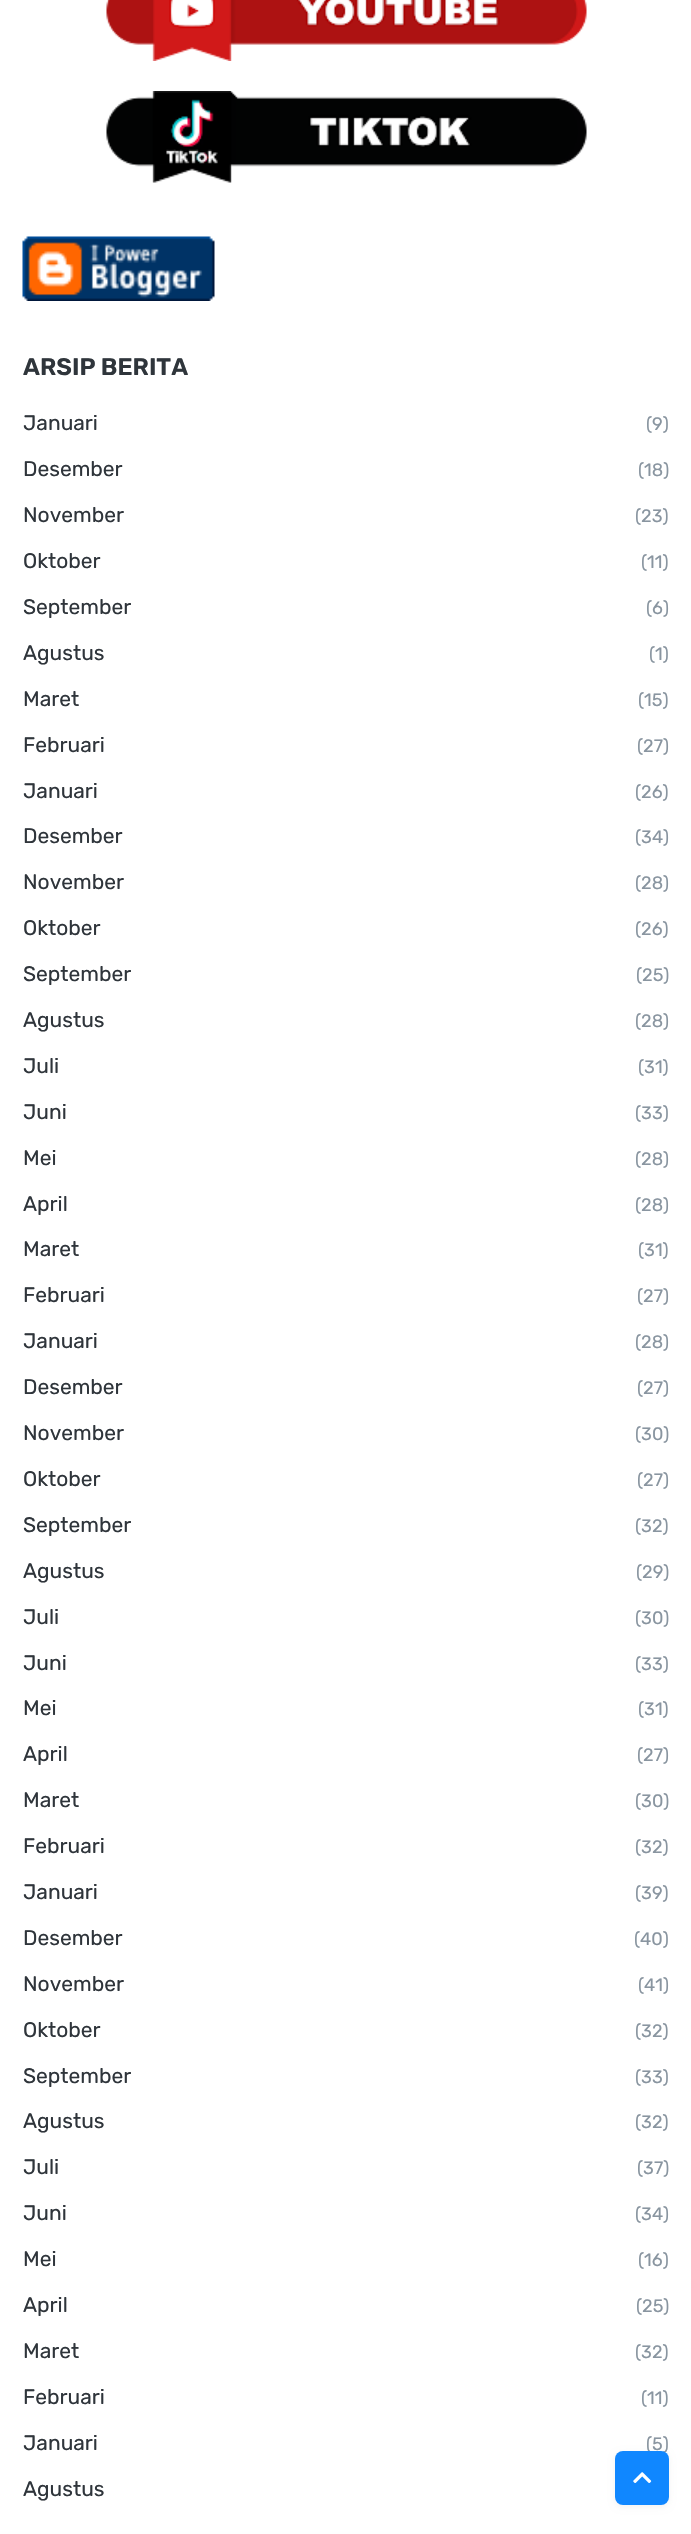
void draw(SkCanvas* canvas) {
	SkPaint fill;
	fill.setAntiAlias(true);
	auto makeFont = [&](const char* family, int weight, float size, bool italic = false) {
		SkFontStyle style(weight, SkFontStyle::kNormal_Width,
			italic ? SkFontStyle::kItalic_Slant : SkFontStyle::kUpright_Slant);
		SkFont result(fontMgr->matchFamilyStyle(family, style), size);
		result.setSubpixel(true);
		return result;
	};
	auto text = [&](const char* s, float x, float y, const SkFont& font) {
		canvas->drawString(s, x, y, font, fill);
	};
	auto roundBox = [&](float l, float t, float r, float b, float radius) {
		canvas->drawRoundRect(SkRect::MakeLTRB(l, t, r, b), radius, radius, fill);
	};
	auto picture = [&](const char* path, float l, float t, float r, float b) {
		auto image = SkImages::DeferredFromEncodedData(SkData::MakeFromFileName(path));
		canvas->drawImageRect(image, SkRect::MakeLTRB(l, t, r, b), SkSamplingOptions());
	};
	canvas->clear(0xFFFFFFFF);
	picture("image0.png", 106, 0, 587, 61);
	picture("image1.png", 106, 91, 587, 183);
	picture("image2.png", 22, 236, 215, 301);
	fill.setColor(0x0D000000);
	fill.setMaskFilter(SkMaskFilter::MakeBlur(kNormal_SkBlurStyle, 3));
	canvas->drawRoundRect(SkRect::MakeLTRB(615, 2453, 669, 2507), 8, 8, fill);
	fill.setMaskFilter(nullptr);
	auto font1 = makeFont("Rubik", 600, 24);
	fill.setColor(0xFF2F353B);
	text("ARSIP BERITA", 23, 375, font1);
	auto font2 = makeFont("Rubik", 400, 21);
	text("Januari", 23, 430, font2);
	auto font3 = makeFont("Rubik", 400, 18);
	fill.setColor(0xFF8995A0);
	text("(9)", 646, 430, font3);
	fill.setColor(0xFF2F353B);
	text("Desember", 23, 476, font2);
	fill.setColor(0xFF8995A0);
	text("(18)", 638, 476, font3);
	fill.setColor(0xFF2F353B);
	text("November", 23, 522, font2);
	fill.setColor(0xFF8995A0);
	text("(23)", 635, 522, font3);
	fill.setColor(0xFF2F353B);
	text("Oktober", 23, 568, font2);
	fill.setColor(0xFF8995A0);
	text("(11)", 641, 568, font3);
	fill.setColor(0xFF2F353B);
	text("September", 23, 614, font2);
	fill.setColor(0xFF8995A0);
	text("(6)", 646, 614, font3);
	fill.setColor(0xFF2F353B);
	text("Agustus", 23, 660, font2);
	fill.setColor(0xFF8995A0);
	text("(1)", 649, 660, font3);
	fill.setColor(0xFF2F353B);
	text("Maret", 23, 706, font2);
	fill.setColor(0xFF8995A0);
	text("(15)", 638, 706, font3);
	fill.setColor(0xFF2F353B);
	text("Februari", 23, 752, font2);
	fill.setColor(0xFF8995A0);
	text("(27)", 637, 752, font3);
	fill.setColor(0xFF2F353B);
	text("Januari", 23, 798, font2);
	fill.setColor(0xFF8995A0);
	text("(26)", 635, 798, font3);
	fill.setColor(0xFF2F353B);
	text("Desember", 23, 843, font2);
	fill.setColor(0xFF8995A0);
	text("(34)", 635, 843, font3);
	fill.setColor(0xFF2F353B);
	text("November", 23, 889, font2);
	fill.setColor(0xFF8995A0);
	text("(28)", 635, 889, font3);
	fill.setColor(0xFF2F353B);
	text("Oktober", 23, 935, font2);
	fill.setColor(0xFF8995A0);
	text("(26)", 635, 935, font3);
	fill.setColor(0xFF2F353B);
	text("September", 23, 981, font2);
	fill.setColor(0xFF8995A0);
	text("(25)", 636, 981, font3);
	fill.setColor(0xFF2F353B);
	text("Agustus", 23, 1027, font2);
	fill.setColor(0xFF8995A0);
	text("(28)", 635, 1027, font3);
	fill.setColor(0xFF2F353B);
	text("Juli", 23, 1073, font2);
	fill.setColor(0xFF8995A0);
	text("(31)", 638, 1073, font3);
	fill.setColor(0xFF2F353B);
	text("Juni", 23, 1119, font2);
	fill.setColor(0xFF8995A0);
	text("(33)", 635, 1119, font3);
	fill.setColor(0xFF2F353B);
	text("Mei", 23, 1165, font2);
	fill.setColor(0xFF8995A0);
	text("(28)", 635, 1165, font3);
	fill.setColor(0xFF2F353B);
	text("April", 23, 1211, font2);
	fill.setColor(0xFF8995A0);
	text("(28)", 635, 1211, font3);
	fill.setColor(0xFF2F353B);
	text("Maret", 23, 1256, font2);
	fill.setColor(0xFF8995A0);
	text("(31)", 638, 1256, font3);
	fill.setColor(0xFF2F353B);
	text("Februari", 23, 1302, font2);
	fill.setColor(0xFF8995A0);
	text("(27)", 637, 1302, font3);
	fill.setColor(0xFF2F353B);
	text("Januari", 23, 1348, font2);
	fill.setColor(0xFF8995A0);
	text("(28)", 635, 1348, font3);
	fill.setColor(0xFF2F353B);
	text("Desember", 23, 1394, font2);
	fill.setColor(0xFF8995A0);
	text("(27)", 637, 1394, font3);
	fill.setColor(0xFF2F353B);
	text("November", 23, 1440, font2);
	fill.setColor(0xFF8995A0);
	text("(30)", 635, 1440, font3);
	fill.setColor(0xFF2F353B);
	text("Oktober", 23, 1486, font2);
	fill.setColor(0xFF8995A0);
	text("(27)", 637, 1486, font3);
	fill.setColor(0xFF2F353B);
	text("September", 23, 1532, font2);
	fill.setColor(0xFF8995A0);
	text("(32)", 635, 1532, font3);
	fill.setColor(0xFF2F353B);
	text("Agustus", 23, 1578, font2);
	fill.setColor(0xFF8995A0);
	text("(29)", 636, 1578, font3);
	fill.setColor(0xFF2F353B);
	text("Juli", 23, 1624, font2);
	fill.setColor(0xFF8995A0);
	text("(30)", 635, 1624, font3);
	fill.setColor(0xFF2F353B);
	text("Juni", 23, 1670, font2);
	fill.setColor(0xFF8995A0);
	text("(33)", 635, 1670, font3);
	fill.setColor(0xFF2F353B);
	text("Mei", 23, 1715, font2);
	fill.setColor(0xFF8995A0);
	text("(31)", 638, 1715, font3);
	fill.setColor(0xFF2F353B);
	text("April", 23, 1761, font2);
	fill.setColor(0xFF8995A0);
	text("(27)", 637, 1761, font3);
	fill.setColor(0xFF2F353B);
	text("Maret", 23, 1807, font2);
	fill.setColor(0xFF8995A0);
	text("(30)", 635, 1807, font3);
	fill.setColor(0xFF2F353B);
	text("Februari", 23, 1853, font2);
	fill.setColor(0xFF8995A0);
	text("(32)", 635, 1853, font3);
	fill.setColor(0xFF2F353B);
	text("Januari", 23, 1899, font2);
	fill.setColor(0xFF8995A0);
	text("(39)", 635, 1899, font3);
	fill.setColor(0xFF2F353B);
	text("Desember", 23, 1945, font2);
	fill.setColor(0xFF8995A0);
	text("(40)", 634, 1945, font3);
	fill.setColor(0xFF2F353B);
	text("November", 23, 1991, font2);
	fill.setColor(0xFF8995A0);
	text("(41)", 638, 1991, font3);
	fill.setColor(0xFF2F353B);
	text("Oktober", 23, 2037, font2);
	fill.setColor(0xFF8995A0);
	text("(32)", 635, 2037, font3);
	fill.setColor(0xFF2F353B);
	text("September", 23, 2083, font2);
	fill.setColor(0xFF8995A0);
	text("(33)", 635, 2083, font3);
	fill.setColor(0xFF2F353B);
	text("Agustus", 23, 2128, font2);
	fill.setColor(0xFF8995A0);
	text("(32)", 635, 2128, font3);
	fill.setColor(0xFF2F353B);
	text("Juli", 23, 2174, font2);
	fill.setColor(0xFF8995A0);
	text("(37)", 637, 2174, font3);
	fill.setColor(0xFF2F353B);
	text("Juni", 23, 2220, font2);
	fill.setColor(0xFF8995A0);
	text("(34)", 635, 2220, font3);
	fill.setColor(0xFF2F353B);
	text("Mei", 23, 2266, font2);
	fill.setColor(0xFF8995A0);
	text("(16)", 638, 2266, font3);
	fill.setColor(0xFF2F353B);
	text("April", 23, 2312, font2);
	fill.setColor(0xFF8995A0);
	text("(25)", 636, 2312, font3);
	fill.setColor(0xFF2F353B);
	text("Maret", 23, 2358, font2);
	fill.setColor(0xFF8995A0);
	text("(32)", 635, 2358, font3);
	fill.setColor(0xFF2F353B);
	text("Februari", 23, 2404, font2);
	fill.setColor(0xFF8995A0);
	text("(11)", 641, 2404, font3);
	fill.setColor(0xFF2F353B);
	text("Januari", 23, 2450, font2);
	fill.setColor(0xFF8995A0);
	text("(5)", 646, 2450, font3);
	fill.setColor(0xFF2F353B);
	text("Agustus", 23, 2496, font2);
	fill.setColor(0xFF1087FF);
	roundBox(615, 2451, 669, 2505, 8);
	picture("image3.png", 633, 2472, 652, 2483);
}
